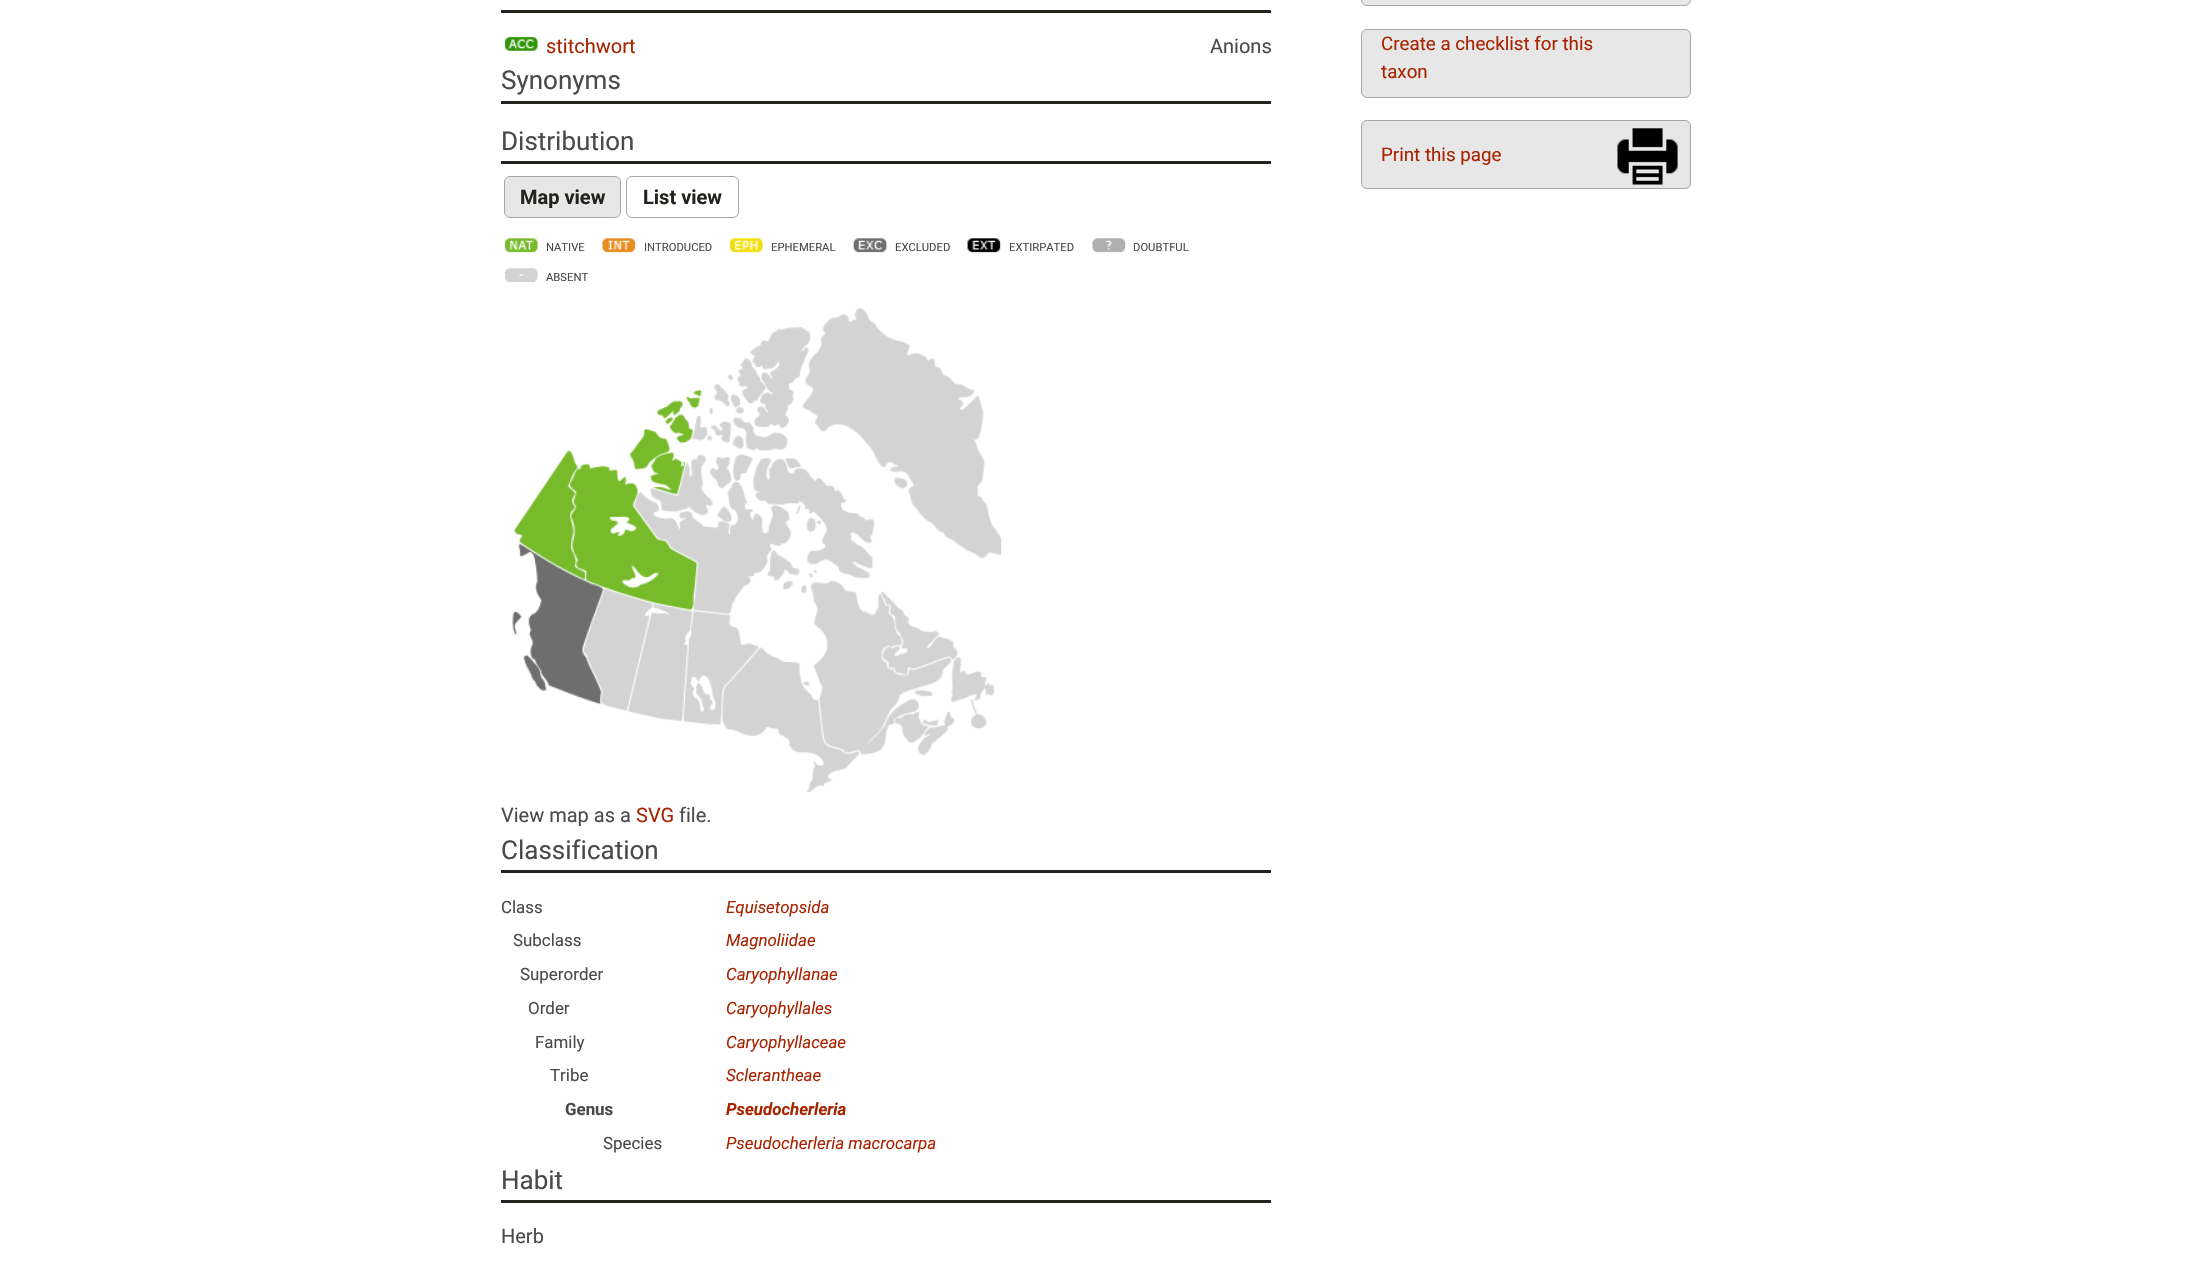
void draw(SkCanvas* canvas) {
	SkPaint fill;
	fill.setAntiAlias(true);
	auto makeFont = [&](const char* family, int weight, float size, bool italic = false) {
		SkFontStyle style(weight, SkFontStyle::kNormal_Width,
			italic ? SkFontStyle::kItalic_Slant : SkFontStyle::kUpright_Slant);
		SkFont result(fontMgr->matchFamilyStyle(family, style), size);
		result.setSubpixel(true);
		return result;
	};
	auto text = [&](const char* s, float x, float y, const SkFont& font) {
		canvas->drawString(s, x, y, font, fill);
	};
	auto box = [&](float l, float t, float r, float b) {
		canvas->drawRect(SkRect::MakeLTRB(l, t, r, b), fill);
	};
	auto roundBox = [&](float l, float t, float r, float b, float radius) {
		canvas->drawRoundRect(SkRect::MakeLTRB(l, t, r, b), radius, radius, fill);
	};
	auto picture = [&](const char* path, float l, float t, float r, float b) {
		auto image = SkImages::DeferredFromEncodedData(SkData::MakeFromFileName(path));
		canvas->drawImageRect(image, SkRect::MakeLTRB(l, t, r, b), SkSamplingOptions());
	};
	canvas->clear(0xFFFFFFFF);
	fill.setColor(0xFF22241E);
	box(501, 10, 1271, 13);
	picture("image0.png", 504, 36, 539, 51);
	box(501, 101, 1271, 104);
	box(501, 161, 1271, 164);
	fill.setColor(0xFFE7E7E7);
	canvas->drawRoundRect(SkRect::MakeLTRB(504.5f, 176.5f, 620.5f, 217.5f), 5.5f, 5.5f, fill);
	fill.setStyle(SkPaint::kStroke_Style);
	fill.setStrokeWidth(1);
	fill.setColor(0xFFA8A7A5);
	canvas->drawRoundRect(SkRect::MakeLTRB(504.5f, 176.5f, 620.5f, 217.5f), 5.5f, 5.5f, fill);
	canvas->drawRoundRect(SkRect::MakeLTRB(626.5f, 176.5f, 738.5f, 217.5f), 5.5f, 5.5f, fill);
	picture("image1.png", 504, 238, 539, 253);
	picture("image2.png", 602, 238, 636, 253);
	picture("image3.png", 729, 238, 764, 253);
	picture("image4.png", 853, 238, 888, 253);
	picture("image5.png", 967, 238, 1001, 253);
	picture("image6.png", 1092, 238, 1126, 253);
	picture("image7.png", 505, 268, 538, 283);
	picture("image8.png", 512, 308, 1002, 792);
	fill.setStyle(SkPaint::kFill_Style);
	fill.setColor(0xFF22241E);
	box(501, 870, 1271, 873);
	box(501, 1200, 1271, 1203);
	fill.setColor(0xFFE7E7E7);
	canvas->drawRoundRect(SkRect::MakeLTRB(1361.5f, -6.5f, 1690.5f, 5.5f), 5.5f, 5.5f, fill);
	fill.setStyle(SkPaint::kStroke_Style);
	fill.setColor(0xFFA8A7A5);
	canvas->drawRoundRect(SkRect::MakeLTRB(1361.5f, -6.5f, 1690.5f, 5.5f), 5.5f, 5.5f, fill);
	fill.setStyle(SkPaint::kFill_Style);
	fill.setColor(0xFFE7E7E7);
	canvas->drawRoundRect(SkRect::MakeLTRB(1361.5f, 29.5f, 1690.5f, 97.5f), 5.5f, 5.5f, fill);
	fill.setStyle(SkPaint::kStroke_Style);
	fill.setColor(0xFFA8A7A5);
	canvas->drawRoundRect(SkRect::MakeLTRB(1361.5f, 29.5f, 1690.5f, 97.5f), 5.5f, 5.5f, fill);
	fill.setStyle(SkPaint::kFill_Style);
	fill.setColor(0xFFE7E7E7);
	roundBox(1361, 120, 1691, 189, 6);
	picture("image9.png", 1617, 128, 1678, 185);
	fill.setStyle(SkPaint::kStroke_Style);
	fill.setColor(0xFFA8A7A5);
	canvas->drawRoundRect(SkRect::MakeLTRB(1361.5f, 120.5f, 1690.5f, 188.5f), 5.5f, 5.5f, fill);
	auto font1 = makeFont("Roboto", 400, 20);
	fill.setStyle(SkPaint::kFill_Style);
	fill.setColor(0xFFA82400);
	text("stitchwort", 546, 53, font1);
	fill.setColor(0xFF4A4A4A);
	text("Anions", 1210, 53, font1);
	auto font2 = makeFont("Roboto", 400, 26);
	text("Synonyms", 501, 89, font2);
	text("Distribution", 501, 150, font2);
	auto font3 = makeFont("Roboto", 700, 20);
	fill.setColor(0xFF22241E);
	text("Map view", 520, 204, font3);
	text("List view", 643, 204, font3);
	auto font4 = makeFont("Roboto", 400, 11.25f);
	fill.setColor(0xFF4A4A4A);
	text("NATIVE", 546, 251, font4);
	text("INTRODUCED", 644, 251, font4);
	text("EPHEMERAL", 771, 251, font4);
	text("EXCLUDED", 895, 251, font4);
	text("EXTIRPATED", 1009, 251, font4);
	text("DOUBTFUL", 1133, 251, font4);
	text("ABSENT", 546, 281, font4);
	text("View map as a", 501, 822, font1);
	fill.setColor(0xFFA82400);
	text("SVG", 636, 822, font1);
	fill.setColor(0xFF4A4A4A);
	text("file.", 679, 822, font1);
	text("Classification", 501, 859, font2);
	auto font5 = makeFont("Roboto", 400, 16.9f);
	text("Class", 501, 913, font5);
	auto font6 = makeFont("Roboto", 400, 16.9f, true);
	fill.setColor(0xFFA82400);
	text("Equisetopsida", 726, 913, font6);
	fill.setColor(0xFF4A4A4A);
	text("Subclass", 513, 946, font5);
	fill.setColor(0xFFA82400);
	text("Magnoliidae", 726, 946, font6);
	fill.setColor(0xFF4A4A4A);
	text("Superorder", 520, 980, font5);
	fill.setColor(0xFFA82400);
	text("Caryophyllanae", 726, 980, font6);
	fill.setColor(0xFF4A4A4A);
	text("Order", 528, 1014, font5);
	fill.setColor(0xFFA82400);
	text("Caryophyllales", 726, 1014, font6);
	fill.setColor(0xFF4A4A4A);
	text("Family", 535, 1048, font5);
	fill.setColor(0xFFA82400);
	text("Caryophyllaceae", 726, 1048, font6);
	fill.setColor(0xFF4A4A4A);
	text("Tribe", 550, 1081, font5);
	fill.setColor(0xFFA82400);
	text("Sclerantheae", 726, 1081, font6);
	auto font7 = makeFont("Roboto", 700, 16.9f);
	fill.setColor(0xFF4A4A4A);
	text("Genus", 565, 1115, font7);
	auto font8 = makeFont("Roboto", 700, 16.9f, true);
	fill.setColor(0xFFA82400);
	text("Pseudocherleria", 726, 1115, font8);
	fill.setColor(0xFF4A4A4A);
	text("Species", 603, 1149, font5);
	fill.setColor(0xFFA82400);
	text("Pseudocherleria macrocarpa", 726, 1149, font6);
	fill.setColor(0xFF4A4A4A);
	text("Habit", 501, 1189, font2);
	text("Herb", 501, 1243, font1);
	auto font9 = makeFont("Roboto", 400, 18.75f);
	fill.setColor(0xFFA82400);
	text("Create a checklist for this", 1381, 50, font9);
	text("taxon", 1381, 78, font9);
	text("Print this page", 1381, 161, font9);
}
